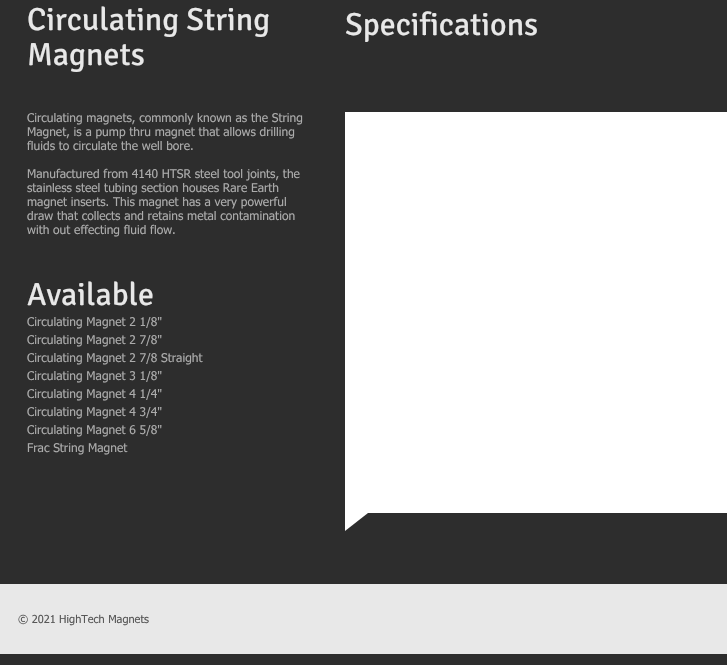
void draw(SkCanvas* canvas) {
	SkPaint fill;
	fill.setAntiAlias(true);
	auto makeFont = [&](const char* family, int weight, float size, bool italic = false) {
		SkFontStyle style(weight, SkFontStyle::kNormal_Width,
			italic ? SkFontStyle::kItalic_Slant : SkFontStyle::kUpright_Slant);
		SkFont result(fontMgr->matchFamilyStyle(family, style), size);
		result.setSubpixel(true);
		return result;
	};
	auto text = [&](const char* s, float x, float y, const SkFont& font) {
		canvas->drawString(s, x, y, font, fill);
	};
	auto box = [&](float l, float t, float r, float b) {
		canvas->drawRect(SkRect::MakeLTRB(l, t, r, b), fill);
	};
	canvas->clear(0xFF2D2D2D);
	fill.setColor(0xFFFFFFFF);
	box(345, 112, 727, 513);
	canvas->drawPath(SkPathBuilder().moveTo(345, 513).lineTo(368, 513).lineTo(345, 531).close().detach(), fill);
	fill.setColor(0xFFE8E8E8);
	box(0, 584, 727, 654);
	auto font1 = makeFont("Signika", 400, 32);
	text("Circulating String", 27, 30, font1);
	text("Magnets", 27, 65, font1);
	text("Specifications", 345, 35, font1);
	auto font2 = makeFont("tahoma", 400, 12);
	fill.setColor(0xFFABABAB);
	text("Circulating magnets, commonly known as the String", 27, 122, font2);
	text("Magnet, is a pump thru magnet that allows drilling", 27, 136, font2);
	text("fluids to circulate the well bore.", 27, 150, font2);
	text("Manufactured from 4140 HTSR steel tool joints, the", 27, 178, font2);
	text("stainless steel tubing section houses Rare Earth", 27, 192, font2);
	text("magnet inserts. This magnet has a very powerful", 27, 206, font2);
	text("draw that collects and retains metal contamination", 27, 220, font2);
	text("with out effecting fluid flow.", 27, 234, font2);
	fill.setColor(0xFFE8E8E8);
	text("Available", 27, 305, font1);
	fill.setColor(0xFFABABAB);
	text("Circulating Magnet 2 1/8\"", 27, 326, font2);
	text("Circulating Magnet 2 7/8\"", 27, 344, font2);
	text("Circulating Magnet 2 7/8 Straight", 27, 362, font2);
	text("Circulating Magnet 3 1/8\"", 27, 380, font2);
	text("Circulating Magnet 4 1/4\"", 27, 398, font2);
	text("Circulating Magnet 4 3/4\"", 27, 416, font2);
	text("Circulating Magnet 6 5/8\"", 27, 434, font2);
	text("Frac String Magnet", 27, 452, font2);
	auto font3 = makeFont("tahoma", 400, 11);
	fill.setColor(0xFF575757);
	text("© 2021 HighTech Magnets", 18, 623, font3);
}
